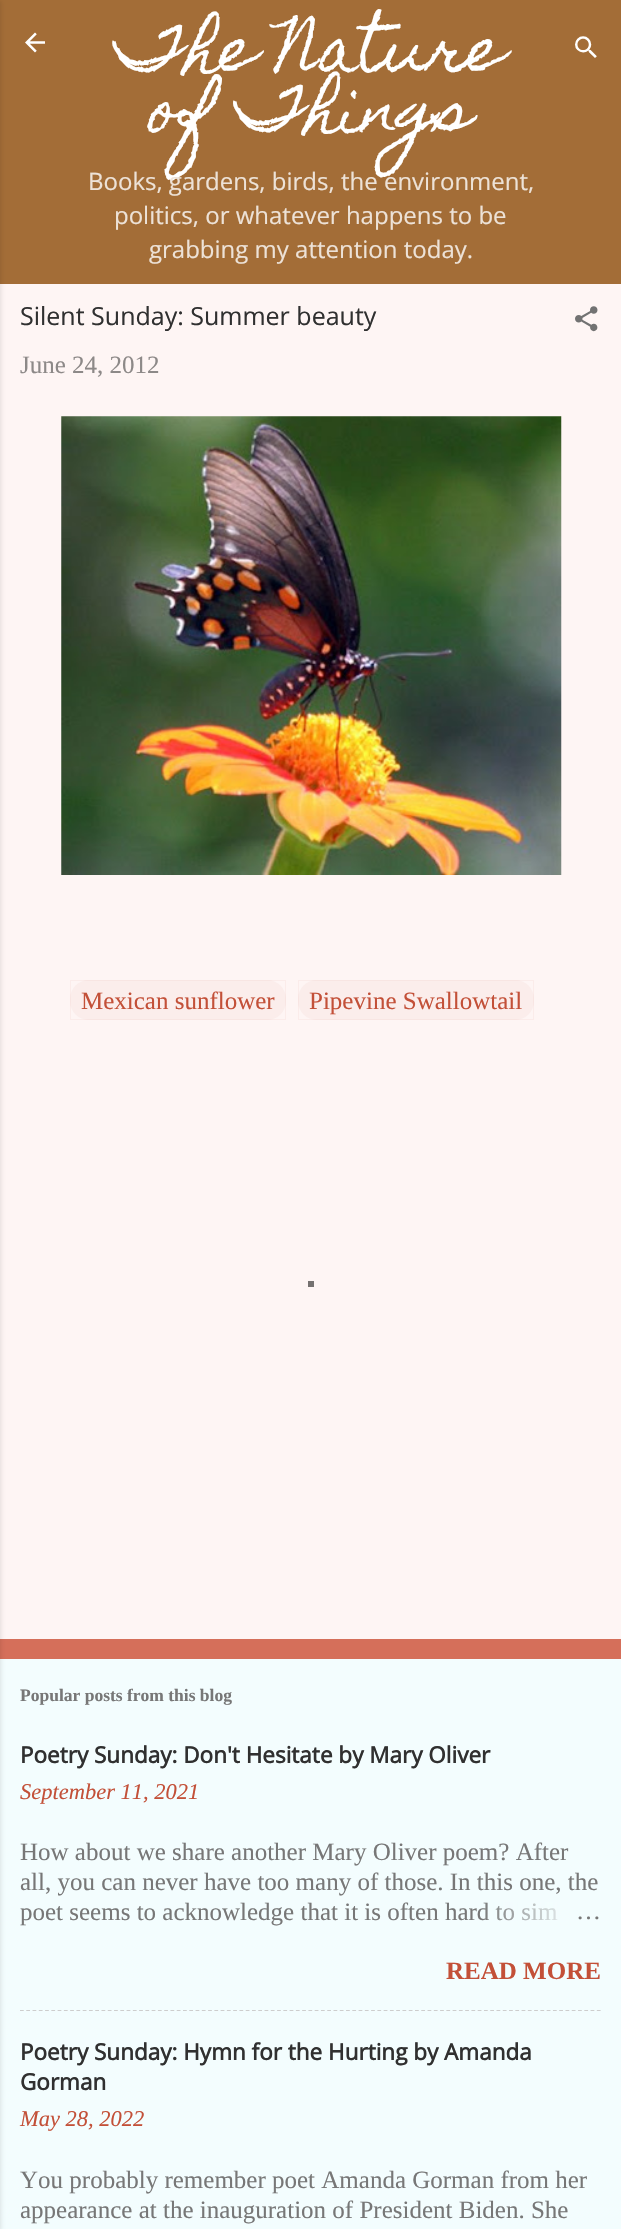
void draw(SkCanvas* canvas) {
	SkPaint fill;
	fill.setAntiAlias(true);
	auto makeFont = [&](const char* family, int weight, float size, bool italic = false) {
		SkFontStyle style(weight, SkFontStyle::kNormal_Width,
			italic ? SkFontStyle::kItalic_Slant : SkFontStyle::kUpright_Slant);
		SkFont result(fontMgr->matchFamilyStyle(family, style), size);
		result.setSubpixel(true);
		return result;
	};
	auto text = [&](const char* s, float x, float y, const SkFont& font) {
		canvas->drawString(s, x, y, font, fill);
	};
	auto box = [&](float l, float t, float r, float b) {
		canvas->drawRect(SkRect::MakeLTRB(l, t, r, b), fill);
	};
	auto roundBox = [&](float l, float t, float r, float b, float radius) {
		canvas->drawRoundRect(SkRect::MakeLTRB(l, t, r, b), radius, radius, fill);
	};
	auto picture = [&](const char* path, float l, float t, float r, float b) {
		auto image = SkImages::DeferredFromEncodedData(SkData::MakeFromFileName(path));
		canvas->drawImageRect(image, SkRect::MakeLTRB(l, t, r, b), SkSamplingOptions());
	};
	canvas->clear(0xFFD56F5A);
	fill.setColor(0xFFA36D37);
	box(0, 0, 621, 284);
	fill.setColor(0xFFFEF5F4);
	box(0, 284, 621, 1639);
	fill.setColor(0xFFF3FDFE);
	box(0, 1659, 621, 2229);
	fill.setColor(0x1A000000);
	fill.setMaskFilter(SkMaskFilter::MakeBlur(kNormal_SkBlurStyle, 2));
	canvas->drawRect(SkRect::MakeLTRB(-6, 1, 1, 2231), fill);
	fill.setMaskFilter(nullptr);
	picture("image0.png", 25, 32, 45, 53);
	picture("image1.png", 575, 36, 597, 58);
	picture("image2.png", 575, 306, 598, 332);
	picture("image3.png", 61, 416, 562, 875);
	fill.setColor(0xFFFBEDEB);
	roundBox(70, 980, 286, 1020, 19);
	fill.setStyle(SkPaint::kStroke_Style);
	fill.setStrokeWidth(1);
	fill.setColor(0x0DC35038);
	canvas->drawRect(SkRect::MakeLTRB(70.5f, 980.5f, 285.5f, 1019.5f), fill);
	fill.setStyle(SkPaint::kFill_Style);
	fill.setColor(0xFFFBEDEB);
	roundBox(298, 980, 534, 1020, 19);
	fill.setStyle(SkPaint::kStroke_Style);
	fill.setColor(0x0DC35038);
	canvas->drawRect(SkRect::MakeLTRB(298.5f, 980.5f, 533.5f, 1019.5f), fill);
	fill.setStrokeWidth(1.2f);
	fill.setColor(0xFFCDCDCD);
	fill.setPathEffect(SkDashPathEffect::Make({{3.75f, 2.52f}}, 0));
	canvas->drawPath(SkPathBuilder().moveTo(20, 2010.5f).lineTo(601, 2010.5f).detach(), fill);
	fill.setPathEffect(nullptr);
	fill.setStyle(SkPaint::kFill_Style);
	fill.setColor(0xFF757170);
	box(308, 1281, 314, 1287);
	auto font1 = makeFont("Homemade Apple", 400, 60);
	fill.setColor(0xFFFFFFFF);
	text("The Nature", 117, 70, font1);
	text("of Things", 149, 130, font1);
	auto font2 = makeFont("Open Sans", 400, 24);
	fill.setColor(0xFFEDE2D7);
	text("Books, gardens, birds, the environment,", 88, 190, font2);
	text("politics, or whatever happens to be", 114, 224, font2);
	text("grabbing my attention today.", 149, 258, font2);
	auto font3 = makeFont("Open Sans", 400, 25);
	fill.setColor(0xFF303030);
	text("Silent Sunday: Summer beauty", 20, 325, font3);
	auto font4 = makeFont("Liberation Serif", 400, 25);
	fill.setColor(0xFF8D8988);
	text("June 24, 2012", 20, 373, font4);
	fill.setColor(0xFFC35038);
	text("Mexican sunflower", 81, 1009, font4);
	text("Pipevine Swallowtail", 309, 1009, font4);
	auto font5 = makeFont("Liberation Serif", 700, 17.5f);
	fill.setColor(0xFF777777);
	text("Popular posts from this blog", 20, 1701, font5);
	auto font6 = makeFont("Open Sans", 700, 22.5f);
	fill.setColor(0xFF303030);
	text("Poetry Sunday: Don't Hesitate by Mary Oliver", 20, 1763, font6);
	auto font7 = makeFont("Liberation Serif", 400, 22.5f, true);
	fill.setColor(0xFFC35038);
	text("September 11, 2021", 20, 1799, font7);
	fill.setColor(0xFF777777);
	text("How about we share another Mary Oliver poem? After", 20, 1860, font4);
	text("all, you can never have too many of those. In this one, the", 20, 1890, font4);
	text("poet seems to acknowledge that it is often hard to sim", 20, 1920, font4);
	{
		const SkColor colors[] = {0xFFF3FDFE, 0xFFF3FDFE, 0x00F3FDFE};
		const float stops[] = {0, 0.2f, 1};
		const SkPoint ends[] = {{601, 1911}, {481, 1911}};
		fill.setShader(SkGradientShader::MakeLinear(ends, colors, stops, 3, SkTileMode::kClamp));
		fill.setAlpha(255);
	}
	box(483, 1902, 557, 1921);
	fill.setShader(nullptr);
	fill.setColor(0xFF777777);
	text("…", 576, 1919, font4);
	auto font8 = makeFont("Liberation Serif", 700, 25);
	fill.setColor(0xFFC35038);
	text("READ MORE", 446, 1979, font8);
	fill.setColor(0xFF303030);
	text("Poetry Sunday: Hymn for the Hurting by Amanda", 20, 2060, font6);
	text("Gorman", 20, 2090, font6);
	fill.setColor(0xFFC35038);
	text("May 28, 2022", 20, 2126, font7);
	fill.setColor(0xFF777777);
	text("You probably remember poet Amanda Gorman from her", 20, 2188, font4);
	text("appearance at the inauguration of President Biden. She", 20, 2218, font4);
}
